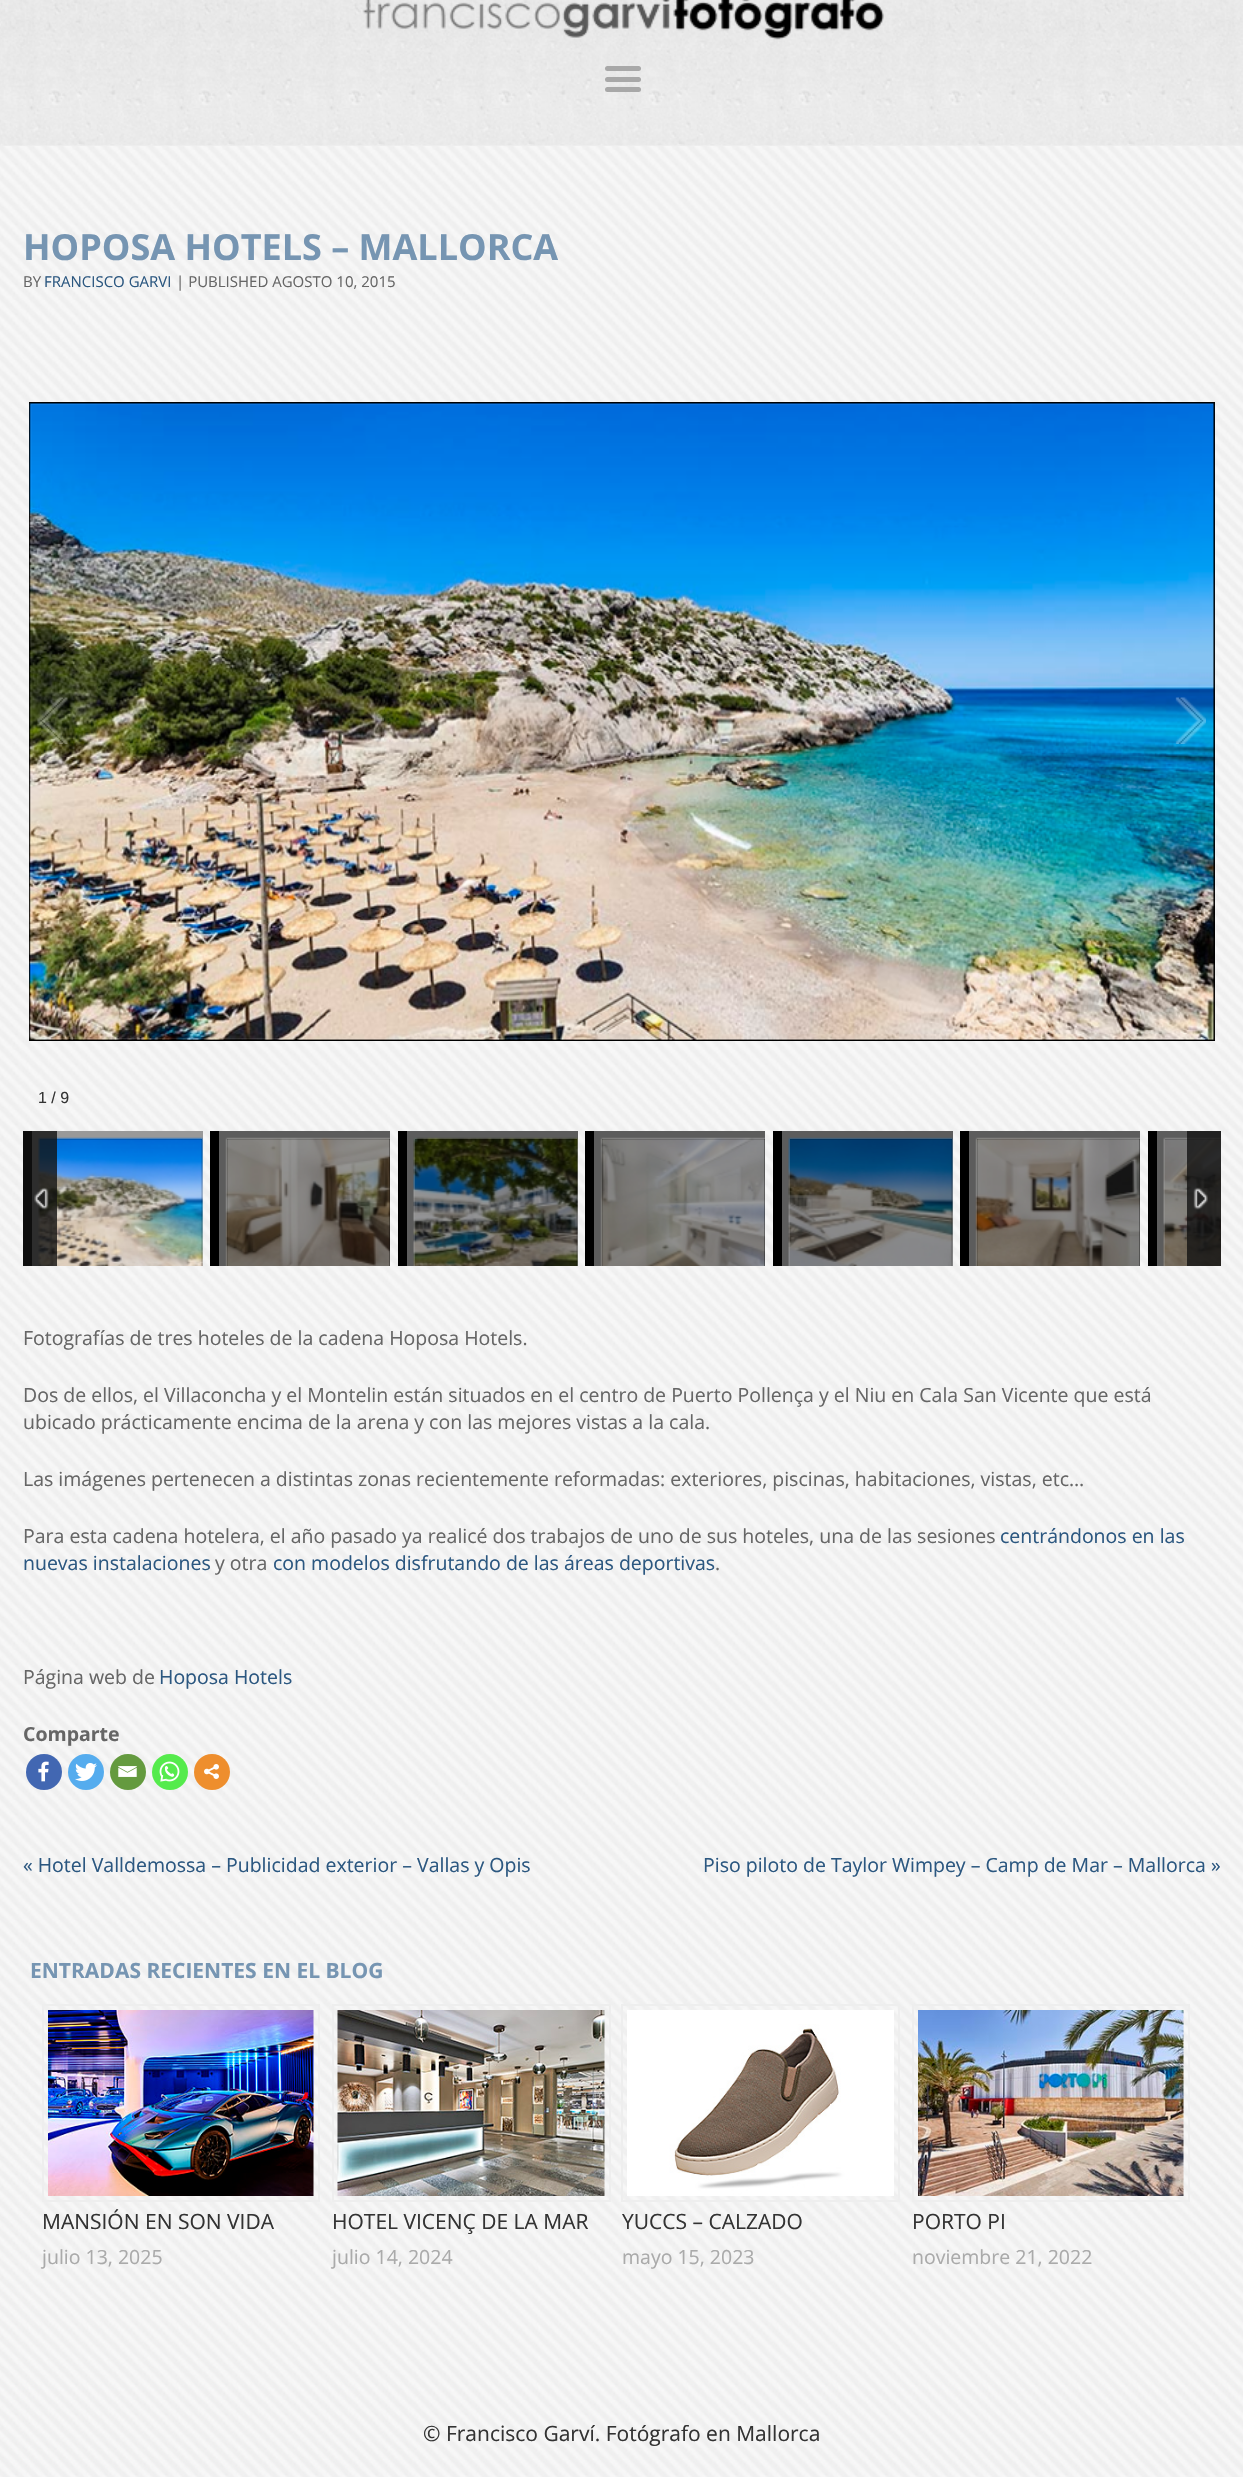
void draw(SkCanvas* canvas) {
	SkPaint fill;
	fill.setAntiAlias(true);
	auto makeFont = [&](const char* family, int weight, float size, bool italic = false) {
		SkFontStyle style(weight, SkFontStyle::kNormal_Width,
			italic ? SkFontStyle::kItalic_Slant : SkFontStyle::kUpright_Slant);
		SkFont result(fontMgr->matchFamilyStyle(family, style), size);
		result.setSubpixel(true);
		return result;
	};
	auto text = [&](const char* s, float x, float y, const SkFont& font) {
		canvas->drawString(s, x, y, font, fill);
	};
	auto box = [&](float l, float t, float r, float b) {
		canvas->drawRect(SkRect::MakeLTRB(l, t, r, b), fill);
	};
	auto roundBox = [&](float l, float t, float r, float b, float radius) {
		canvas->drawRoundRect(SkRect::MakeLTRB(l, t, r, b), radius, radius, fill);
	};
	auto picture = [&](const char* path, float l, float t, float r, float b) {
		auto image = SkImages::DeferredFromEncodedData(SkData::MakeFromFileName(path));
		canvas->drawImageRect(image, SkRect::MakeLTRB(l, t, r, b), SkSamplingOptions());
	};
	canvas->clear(0xFFFFFFFF);
	picture("image0.png", 0, 146, 1243, 2477);
	fill.setColor(0xFFF1F1F1);
	box(0, 145, 1243, 146);
	picture("image1.png", 0, 0, 1243, 146);
	picture("image2.png", 362, 0, 884, 40);
	fill.setColor(0xFFA8A8A8);
	roundBox(605, 66, 641, 71, 2.5f);
	roundBox(605, 77, 641, 82, 2.5f);
	roundBox(605, 87, 641, 92, 2.5f);
	fill.setStyle(SkPaint::kStroke_Style);
	fill.setStrokeWidth(2);
	fill.setColor(0xFF000000);
	canvas->drawRect(SkRect::MakeLTRB(30, 403, 1214, 1040), fill);
	picture("image3.png", 29, 403, 1215, 1040);
	picture("image4.png", 37, 697, 68, 744);
	picture("image5.png", 1175, 697, 1206, 744);
	fill.setStyle(SkPaint::kFill_Style);
	box(23, 1131, 202, 1266);
	canvas->save();
	canvas->clipRect(SkRect::MakeLTRB(23, 1131, 203, 1266));
	fill.setStyle(SkPaint::kStroke_Style);
	fill.setStrokeWidth(8);
	fill.setColor(0xFF999999);
	canvas->drawRect(SkRect::MakeLTRB(36, 1135, 206, 1277), fill);
	canvas->restore();
	picture("image6.png", 38, 1137, 203, 1266);
	fill.setStyle(SkPaint::kFill_Style);
	fill.setColor(0xFF000000);
	box(210, 1131, 390, 1266);
	canvas->save();
	canvas->clipRect(SkRect::MakeLTRB(210, 1131, 390, 1266));
	fill.setStyle(SkPaint::kStroke_Style);
	fill.setColor(0xFF5C5C5C);
	canvas->drawRect(SkRect::MakeLTRB(223, 1135, 394, 1277), fill);
	canvas->restore();
	picture("image7.png", 225, 1137, 390, 1266);
	fill.setStyle(SkPaint::kFill_Style);
	fill.setColor(0xFF000000);
	box(398, 1131, 577, 1266);
	canvas->save();
	canvas->clipRect(SkRect::MakeLTRB(398, 1131, 578, 1266));
	fill.setStyle(SkPaint::kStroke_Style);
	fill.setColor(0xFF5C5C5C);
	canvas->drawRect(SkRect::MakeLTRB(411, 1135, 581, 1277), fill);
	canvas->restore();
	picture("image8.png", 413, 1137, 578, 1266);
	fill.setStyle(SkPaint::kFill_Style);
	fill.setColor(0xFF000000);
	box(585, 1131, 765, 1266);
	canvas->save();
	canvas->clipRect(SkRect::MakeLTRB(585, 1131, 765, 1266));
	fill.setStyle(SkPaint::kStroke_Style);
	fill.setColor(0xFF5C5C5C);
	canvas->drawRect(SkRect::MakeLTRB(598, 1135, 769, 1277), fill);
	canvas->restore();
	picture("image9.png", 600, 1137, 765, 1266);
	fill.setStyle(SkPaint::kFill_Style);
	fill.setColor(0xFF000000);
	box(773, 1131, 952, 1266);
	canvas->save();
	canvas->clipRect(SkRect::MakeLTRB(773, 1131, 953, 1266));
	fill.setStyle(SkPaint::kStroke_Style);
	fill.setColor(0xFF5C5C5C);
	canvas->drawRect(SkRect::MakeLTRB(786, 1135, 956, 1277), fill);
	canvas->restore();
	picture("image10.png", 788, 1137, 953, 1266);
	fill.setStyle(SkPaint::kFill_Style);
	fill.setColor(0xFF000000);
	box(960, 1131, 1140, 1266);
	canvas->save();
	canvas->clipRect(SkRect::MakeLTRB(960, 1131, 1140, 1266));
	fill.setStyle(SkPaint::kStroke_Style);
	fill.setColor(0xFF5C5C5C);
	canvas->drawRect(SkRect::MakeLTRB(973, 1135, 1144, 1277), fill);
	canvas->restore();
	picture("image11.png", 975, 1137, 1140, 1266);
	fill.setStyle(SkPaint::kFill_Style);
	fill.setColor(0xFF000000);
	box(1148, 1131, 1221, 1266);
	canvas->save();
	canvas->clipRect(SkRect::MakeLTRB(1148, 1131, 1221, 1266));
	fill.setStyle(SkPaint::kStroke_Style);
	fill.setColor(0xFF5C5C5C);
	canvas->drawRect(SkRect::MakeLTRB(1161, 1135, 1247, 1277), fill);
	canvas->restore();
	picture("image12.png", 1163, 1137, 1221, 1266);
	fill.setStyle(SkPaint::kFill_Style);
	fill.setColor(0xCC111111);
	box(23, 1131, 57, 1266);
	picture("image13.png", 34, 1187, 49, 1210);
	box(1187, 1131, 1221, 1266);
	picture("image14.png", 1193, 1187, 1208, 1210);
	fill.setColor(0xFF4267B2);
	canvas->drawCircle(44, 1772, 18, fill);
	picture("image15.png", 38, 1761, 49, 1782);
	fill.setColor(0xFF55ACEE);
	canvas->drawCircle(86, 1772, 18, fill);
	picture("image16.png", 75, 1763, 97, 1781);
	fill.setColor(0xFF649A3F);
	canvas->drawCircle(128, 1772, 18, fill);
	picture("image17.png", 118, 1766, 137, 1777);
	fill.setColor(0xFF55EB4C);
	canvas->drawCircle(170, 1772, 18, fill);
	picture("image18.png", 159, 1761, 180, 1782);
	fill.setColor(0xFFEE8E2D);
	canvas->drawCircle(212, 1772, 18, fill);
	picture("image19.png", 204, 1764, 219, 1779);
	fill.setStyle(SkPaint::kStroke_Style);
	fill.setStrokeWidth(2);
	fill.setColor(0xFFEEEEEE);
	canvas->drawRect(SkRect::MakeLTRB(43, 2005, 319, 2201), fill);
	picture("image20.png", 48, 2010, 314, 2196);
	canvas->drawRect(SkRect::MakeLTRB(333, 2005, 610, 2201), fill);
	picture("image21.png", 337, 2010, 605, 2196);
	canvas->drawRect(SkRect::MakeLTRB(622, 2005, 899, 2201), fill);
	picture("image22.png", 627, 2010, 894, 2196);
	canvas->drawRect(SkRect::MakeLTRB(913, 2005, 1189, 2201), fill);
	picture("image23.png", 918, 2010, 1184, 2196);
	auto font1 = makeFont("Open Sans", 700, 36);
	fill.setStyle(SkPaint::kFill_Style);
	fill.setColor(0xFF7695B2);
	text("HOPOSA HOTELS – MALLORCA", 23, 260, font1);
	auto font2 = makeFont("Open Sans", 400, 15);
	fill.setColor(0xFF666666);
	text("BY", 23, 287, font2);
	fill.setColor(0xFF2B5780);
	text("FRANCISCO GARVI", 44, 287, font2);
	fill.setColor(0xFF666666);
	text("| PUBLISHED AGOSTO 10, 2015", 176, 287, font2);
	auto font3 = makeFont("Liberation Sans", 400, 16);
	fill.setColor(0xFF333333);
	text("1 / 9", 38, 1103, font3);
	auto font4 = makeFont("Open Sans", 400, 19.5f);
	fill.setColor(0xFF666666);
	text("Fotografías de tres hoteles de la cadena Hoposa Hotels.", 23, 1345, font4);
	text("Dos de ellos, el Villaconcha y el Montelin están situados en el centro de Puerto Pollença y el Niu en Cala San Vicente que está", 23, 1402, font4);
	text("ubicado prácticamente encima de la arena y con las mejores vistas a la cala.", 23, 1429, font4);
	text("Las imágenes pertenecen a distintas zonas recientemente reformadas: exteriores, piscinas, habitaciones, vistas, etc…", 23, 1486, font4);
	text("Para esta cadena hotelera, el año pasado ya realicé dos trabajos de uno de sus hoteles, una de las sesiones", 23, 1543, font4);
	fill.setColor(0xFF2B5780);
	text("centrándonos en las", 1000, 1543, font4);
	text("nuevas instalaciones", 23, 1570, font4);
	fill.setColor(0xFF666666);
	text("y otra", 215, 1570, font4);
	fill.setColor(0xFF2B5780);
	text("con modelos disfrutando de las áreas deportivas", 273, 1570, font4);
	fill.setColor(0xFF666666);
	text(".", 715, 1570, font4);
	text("Página web de", 23, 1684, font4);
	fill.setColor(0xFF2B5780);
	text("Hoposa Hotels", 159, 1684, font4);
	auto font5 = makeFont("Open Sans", 700, 19.5f);
	fill.setColor(0xFF666666);
	text("Comparte", 23, 1741, font5);
	fill.setColor(0xFF2B5780);
	text("« Hotel Valldemossa – Publicidad exterior – Vallas y Opis", 23, 1872, font4);
	text("Piso piloto de Taylor Wimpey – Camp de Mar – Mallorca »", 703, 1872, font4);
	auto font6 = makeFont("Open Sans", 700, 21);
	fill.setColor(0xFF7695B2);
	text("ENTRADAS RECIENTES EN EL BLOG", 30, 1978, font6);
	auto font7 = makeFont("Open Sans", 400, 21);
	fill.setColor(0xFF333333);
	text("MANSIÓN EN SON VIDA", 42, 2229, font7);
	fill.setColor(0xFFAAAAAA);
	text("julio 13, 2025", 42, 2264, font4);
	fill.setColor(0xFF333333);
	text("HOTEL VICENÇ DE LA MAR", 332, 2229, font7);
	fill.setColor(0xFFAAAAAA);
	text("julio 14, 2024", 332, 2264, font4);
	fill.setColor(0xFF333333);
	text("YUCCS – CALZADO", 622, 2229, font7);
	fill.setColor(0xFFAAAAAA);
	text("mayo 15, 2023", 622, 2264, font4);
	fill.setColor(0xFF333333);
	text("PORTO PI", 912, 2229, font7);
	fill.setColor(0xFFAAAAAA);
	text("noviembre 21, 2022", 912, 2264, font4);
	fill.setColor(0xFF333333);
	text("© Francisco Garví. Fotógrafo en Mallorca", 423, 2441, font7);
}
